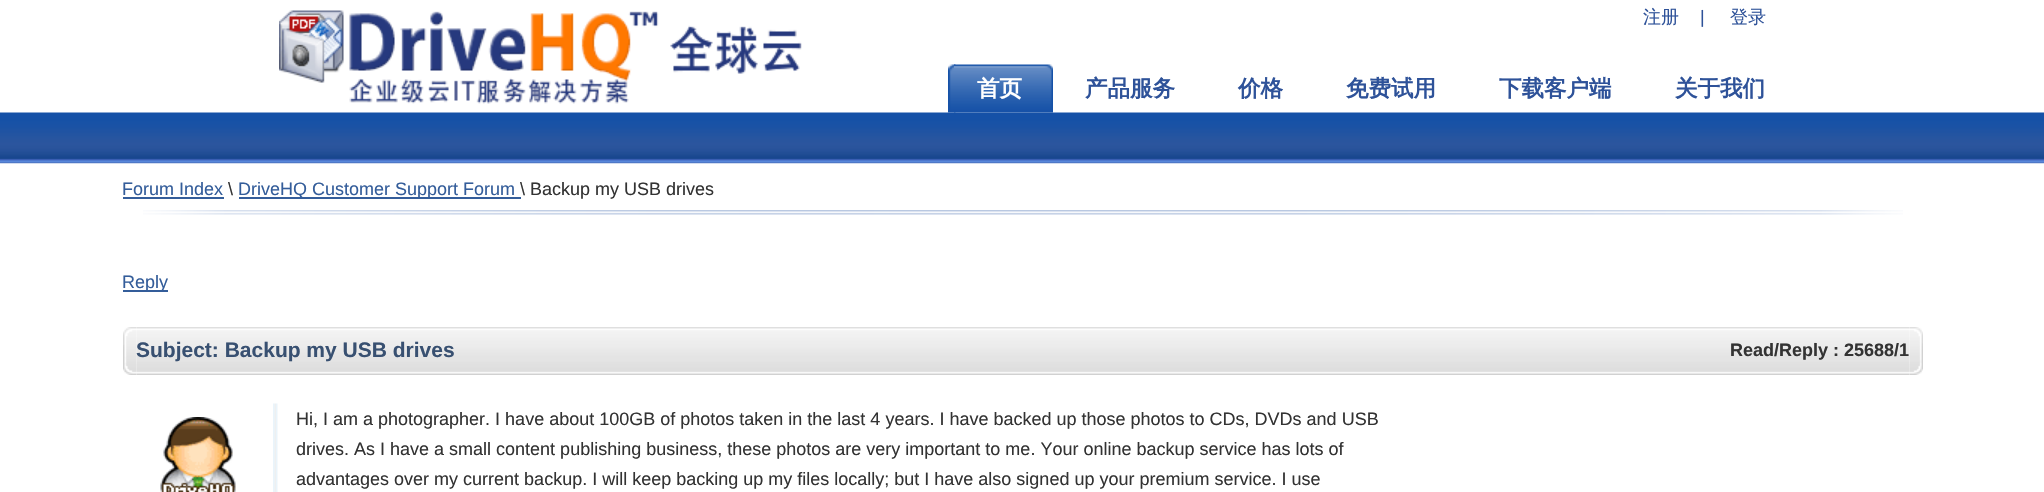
void draw(SkCanvas* canvas) {
	SkPaint fill;
	fill.setAntiAlias(true);
	auto makeFont = [&](const char* family, int weight, float size, bool italic = false) {
		SkFontStyle style(weight, SkFontStyle::kNormal_Width,
			italic ? SkFontStyle::kItalic_Slant : SkFontStyle::kUpright_Slant);
		SkFont result(fontMgr->matchFamilyStyle(family, style), size);
		result.setSubpixel(true);
		return result;
	};
	auto text = [&](const char* s, float x, float y, const SkFont& font) {
		canvas->drawString(s, x, y, font, fill);
	};
	auto box = [&](float l, float t, float r, float b) {
		canvas->drawRect(SkRect::MakeLTRB(l, t, r, b), fill);
	};
	auto picture = [&](const char* path, float l, float t, float r, float b) {
		auto image = SkImages::DeferredFromEncodedData(SkData::MakeFromFileName(path));
		canvas->drawImageRect(image, SkRect::MakeLTRB(l, t, r, b), SkSamplingOptions());
	};
	canvas->clear(0xFFFFFFFF);
	picture("image0.png", 0, 112, 2044, 164);
	picture("image1.png", 279, 10, 802, 104);
	picture("image2.png", 948, 64, 956, 113);
	picture("image3.png", 954, 64, 1053, 113);
	picture("image4.png", 143, 210, 1903, 215);
	fill.setColor(0xFF345D9A);
	box(123, 197, 224, 199);
	box(239, 197, 521, 199);
	box(123, 290, 168, 292);
	picture("image5.png", 123, 327, 137, 375);
	picture("image6.png", 136, 327, 1910, 375);
	picture("image7.png", 1909, 327, 1923, 375);
	picture("image8.png", 160, 417, 236, 492);
	picture("image9.png", 273, 403, 278, 492);
	auto font1 = makeFont("WenQuanYi Zen Hei", 500, 18);
	fill.setColor(0xFF2E5299);
	text("注册", 1643, 23, font1);
	auto font2 = makeFont("Liberation Sans", 400, 18);
	text("|", 1700, 23, font2);
	text("登录", 1730, 23, font1);
	auto font3 = makeFont("WenQuanYi Zen Hei", 700, 22.5f);
	fill.setColor(0xFFFFFFFF);
	text("首页", 977, 96, font3);
	fill.setColor(0xFF2E5299);
	text("产品服务", 1085, 96, font3);
	text("价格", 1238, 96, font3);
	text("免费试用", 1346, 96, font3);
	text("下载客户端", 1499, 96, font3);
	text("关于我们", 1675, 96, font3);
	fill.setColor(0xFF345D9A);
	text("Forum Index", 122, 195, font2);
	fill.setColor(0xFF333333);
	text("\\", 228, 195, font2);
	fill.setColor(0xFF345D9A);
	text("DriveHQ Customer Support Forum", 238, 195, font2);
	fill.setColor(0xFF333333);
	text("\\ Backup my USB drives", 520, 195, font2);
	fill.setColor(0xFF345D9A);
	text("Reply", 122, 288, font2);
	auto font4 = makeFont("Liberation Sans", 700, 21);
	fill.setColor(0xFF385071);
	text("Subject: Backup my USB drives", 136, 357, font4);
	auto font5 = makeFont("Liberation Sans", 700, 18);
	fill.setColor(0xFF333333);
	text("Read/Reply : 25688/1", 1730, 356, font5);
	text("Hi, I am a photographer. I have about 100GB of photos taken in the last 4 years. I have backed up those photos to CDs, DVDs and USB", 296, 425, font2);
	text("drives. As I have a small content publishing business, these photos are very important to me. Your online backup service has lots of", 296, 455, font2);
	text("advantages over my current backup. I will keep backing up my files locally; but I have also signed up your premium service. I use", 296, 485, font2);
}
